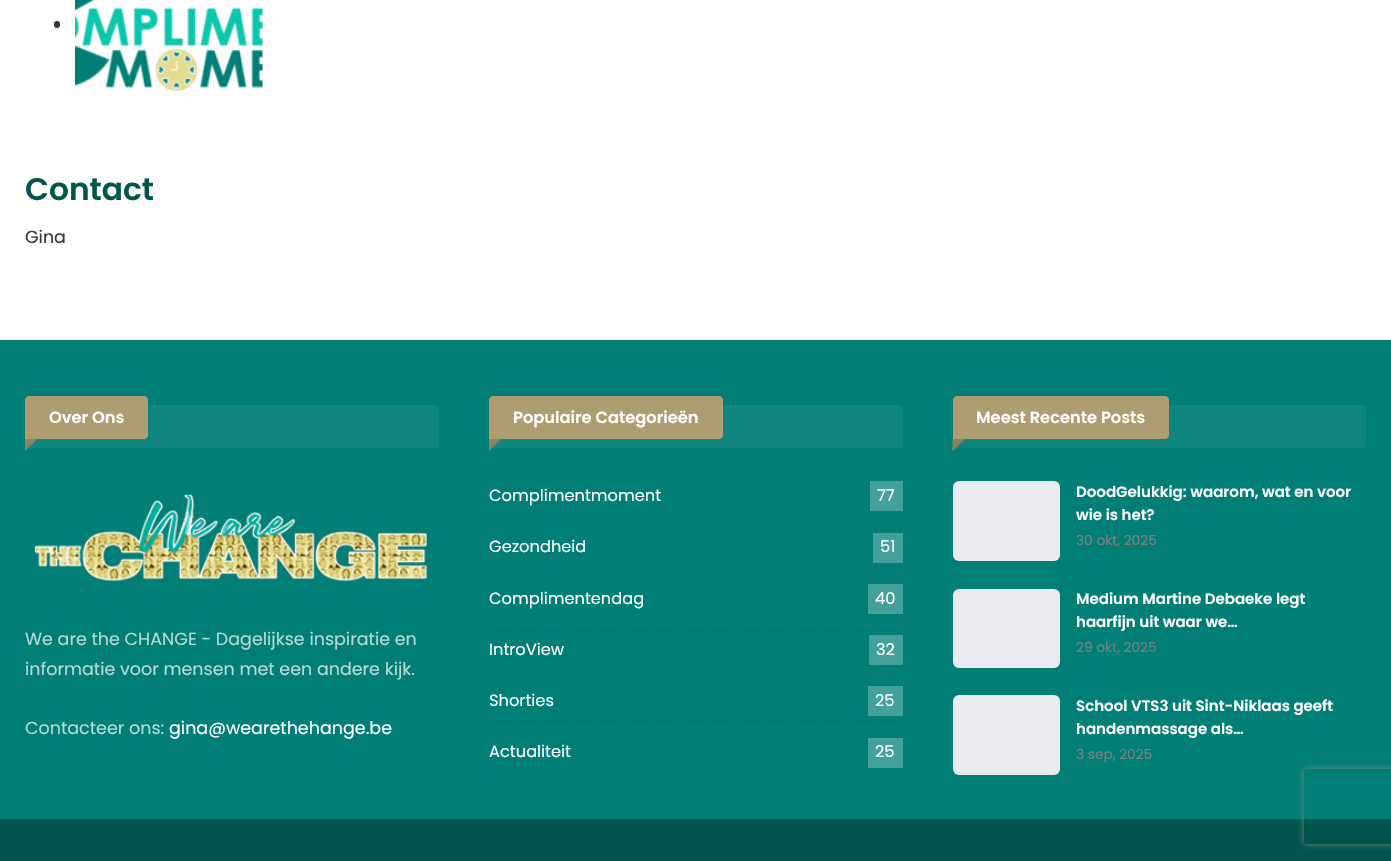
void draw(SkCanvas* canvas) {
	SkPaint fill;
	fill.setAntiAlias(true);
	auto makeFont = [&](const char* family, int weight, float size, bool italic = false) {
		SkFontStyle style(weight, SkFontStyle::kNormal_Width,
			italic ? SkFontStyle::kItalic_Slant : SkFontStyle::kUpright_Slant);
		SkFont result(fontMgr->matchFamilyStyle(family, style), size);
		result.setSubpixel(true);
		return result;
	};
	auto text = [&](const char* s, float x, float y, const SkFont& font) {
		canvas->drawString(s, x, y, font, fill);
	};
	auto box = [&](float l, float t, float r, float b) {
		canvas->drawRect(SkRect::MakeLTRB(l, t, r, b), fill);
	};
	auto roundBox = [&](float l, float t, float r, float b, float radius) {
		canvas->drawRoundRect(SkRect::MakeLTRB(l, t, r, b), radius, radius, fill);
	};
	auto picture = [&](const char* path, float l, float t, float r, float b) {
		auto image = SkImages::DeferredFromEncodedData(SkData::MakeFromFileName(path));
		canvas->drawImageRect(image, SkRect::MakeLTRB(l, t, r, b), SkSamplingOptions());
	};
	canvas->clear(0xFFFFFFFF);
	fill.setColor(0xFF353535);
	roundBox(54, 21, 60, 28, 3);
	picture("image0.png", 75, 0, 263, 92);
	fill.setColor(0xFF017F77);
	box(0, 340, 1391, 819);
	fill.setColor(0xFF0E857E);
	roundBox(25, 405, 439, 448, 4);
	fill.setColor(0xFFAF9D72);
	canvas->drawPath(SkPathBuilder().moveTo(29, 396).lineTo(144, 396).cubicTo(146, 396, 148, 398, 148, 400).lineTo(148, 435).cubicTo(148, 437, 146, 439, 144, 439).lineTo(25, 439).lineTo(25, 400).cubicTo(25, 398, 27, 396, 29, 396).close().detach(), fill);
	canvas->drawPath(SkPathBuilder().moveTo(25, 439).lineTo(37.5f, 439).lineTo(25, 451).close().detach(), fill);
	fill.setColor(0x2E000000);
	canvas->drawPath(SkPathBuilder().moveTo(25, 439).lineTo(37.5f, 439).lineTo(25, 451).close().detach(), fill);
	picture("image1.png", 34, 494, 427, 581);
	fill.setColor(0xFF0E857E);
	roundBox(489, 405, 903, 448, 4);
	fill.setColor(0xFFAF9D72);
	canvas->drawPath(SkPathBuilder().moveTo(493, 396).lineTo(719, 396).cubicTo(721, 396, 723, 398, 723, 400).lineTo(723, 435).cubicTo(723, 437, 721, 439, 719, 439).lineTo(489, 439).lineTo(489, 400).cubicTo(489, 398, 491, 396, 493, 396).close().detach(), fill);
	canvas->drawPath(SkPathBuilder().moveTo(489, 439).lineTo(501, 439).lineTo(489, 451).close().detach(), fill);
	fill.setColor(0x2E000000);
	canvas->drawPath(SkPathBuilder().moveTo(489, 439).lineTo(501, 439).lineTo(489, 451).close().detach(), fill);
	fill.setStyle(SkPaint::kStroke_Style);
	fill.setStrokeWidth(1.2f);
	fill.setColor(0xFF0B847C);
	fill.setPathEffect(SkDashPathEffect::Make({{3.75f, 2.46f}}, 0));
	canvas->drawPath(SkPathBuilder().moveTo(489, 522).lineTo(902.5f, 522).detach(), fill);
	fill.setPathEffect(nullptr);
	fill.setStyle(SkPaint::kFill_Style);
	fill.setColor(0xFF43A09A);
	box(870, 481, 903, 511);
	fill.setStyle(SkPaint::kStroke_Style);
	fill.setColor(0xFF0B847C);
	fill.setPathEffect(SkDashPathEffect::Make({{3.75f, 2.46f}}, 0));
	canvas->drawPath(SkPathBuilder().moveTo(489, 573).lineTo(902.5f, 573).detach(), fill);
	fill.setPathEffect(nullptr);
	fill.setStyle(SkPaint::kFill_Style);
	fill.setColor(0xFF43A09A);
	box(873, 533, 903, 563);
	fill.setStyle(SkPaint::kStroke_Style);
	fill.setColor(0xFF0B847C);
	fill.setPathEffect(SkDashPathEffect::Make({{3.75f, 2.46f}}, 0));
	canvas->drawPath(SkPathBuilder().moveTo(489, 624.5f).lineTo(902.5f, 624.5f).detach(), fill);
	fill.setPathEffect(nullptr);
	fill.setStyle(SkPaint::kFill_Style);
	fill.setColor(0xFF43A09A);
	box(868, 584, 903, 614);
	fill.setStyle(SkPaint::kStroke_Style);
	fill.setColor(0xFF0B847C);
	fill.setPathEffect(SkDashPathEffect::Make({{3.75f, 2.46f}}, 0));
	canvas->drawPath(SkPathBuilder().moveTo(489, 675.5f).lineTo(902.5f, 675.5f).detach(), fill);
	fill.setPathEffect(nullptr);
	fill.setStyle(SkPaint::kFill_Style);
	fill.setColor(0xFF43A09A);
	box(869, 635, 903, 665);
	fill.setStyle(SkPaint::kStroke_Style);
	fill.setColor(0xFF0B847C);
	fill.setPathEffect(SkDashPathEffect::Make({{3.75f, 2.46f}}, 0));
	canvas->drawPath(SkPathBuilder().moveTo(489, 727).lineTo(902.5f, 727).detach(), fill);
	fill.setPathEffect(nullptr);
	fill.setStyle(SkPaint::kFill_Style);
	fill.setColor(0xFF43A09A);
	box(868, 686, 903, 716);
	box(868, 738, 903, 768);
	fill.setColor(0xFF0E857E);
	roundBox(953, 405, 1366, 448, 4);
	fill.setColor(0xFFAF9D72);
	canvas->drawPath(SkPathBuilder().moveTo(957, 396).lineTo(1165, 396).cubicTo(1167, 396, 1169, 398, 1169, 400).lineTo(1169, 435).cubicTo(1169, 437, 1167, 439, 1165, 439).lineTo(953, 439).lineTo(953, 400).cubicTo(953, 398, 955, 396, 957, 396).close().detach(), fill);
	canvas->drawPath(SkPathBuilder().moveTo(952.5f, 439).lineTo(965, 439).lineTo(952.5f, 451).close().detach(), fill);
	fill.setColor(0x2E000000);
	canvas->drawPath(SkPathBuilder().moveTo(952.5f, 439).lineTo(965, 439).lineTo(952.5f, 451).close().detach(), fill);
	fill.setColor(0xFFE9EBEE);
	roundBox(953, 481, 1060, 561, 6);
	roundBox(953, 589, 1060, 668, 6);
	roundBox(953, 695, 1060, 775, 6);
	fill.setColor(0xFF00564E);
	box(0, 819, 1391, 861);
	canvas->save();
	canvas->clipPath(SkPathBuilder(SkPathFillType::kEvenOdd).moveTo(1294, 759).lineTo(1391, 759).lineTo(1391, 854).lineTo(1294, 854).close().moveTo(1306.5f, 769).lineTo(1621.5f, 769).cubicTo(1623, 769, 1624, 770, 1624, 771.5f).lineTo(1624, 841.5f).cubicTo(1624, 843, 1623, 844, 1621.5f, 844).lineTo(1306.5f, 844).cubicTo(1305, 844, 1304, 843, 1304, 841.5f).lineTo(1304, 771.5f).cubicTo(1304, 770, 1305, 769, 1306.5f, 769).close().detach(), true);
	fill.setColor(0xFF808080);
	fill.setMaskFilter(SkMaskFilter::MakeBlur(kNormal_SkBlurStyle, 3));
	canvas->drawRoundRect(SkRect::MakeLTRB(1304, 769, 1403, 844), 2.5f, 2.5f, fill);
	fill.setMaskFilter(nullptr);
	canvas->restore();
	auto font1 = makeFont("Poppins", 600, 31.25f);
	fill.setColor(0xFF00564E);
	text("Contact", 25, 200, font1);
	auto font2 = makeFont("Poppins", 400, 17.5f);
	fill.setColor(0xFF353535);
	text("Gina", 25, 243, font2);
	auto font3 = makeFont("Poppins", 600, 16.25f);
	fill.setColor(0xFFFFFFFF);
	text("Over Ons", 49, 423, font3);
	fill.setColor(0xFFB5DAD8);
	text("We are the CHANGE - Dagelijkse inspiratie en", 25, 645, font2);
	text("informatie voor mensen met een andere kijk.", 25, 675, font2);
	text("Contacteer ons:", 25, 734, font2);
	fill.setColor(0xFFFFFFFF);
	text("gina@wearethehange.be", 169, 734, font2);
	text("Populaire Categorieën", 513, 423, font3);
	auto font4 = makeFont("Poppins", 400, 16.25f);
	text("Complimentmoment", 489, 501, font4);
	text("77", 877, 501, font4);
	text("Gezondheid", 489, 552, font4);
	text("51", 880, 552, font4);
	text("Complimentendag", 489, 604, font4);
	text("40", 875, 604, font4);
	text("IntroView", 489, 655, font4);
	text("32", 876, 655, font4);
	text("Shorties", 489, 706, font4);
	text("25", 875, 706, font4);
	text("Actualiteit", 489, 757, font4);
	text("25", 875, 757, font4);
	text("Meest Recente Posts", 976, 423, font3);
	auto font5 = makeFont("Poppins", 600, 15);
	text("DoodGelukkig: waarom, wat en voor", 1076, 497, font5);
	text("wie is het?", 1076, 520, font5);
	auto font6 = makeFont("Poppins", 400, 13.75f);
	fill.setColor(0xFF7F7F7F);
	text("30 okt, 2025", 1076, 545, font6);
	fill.setColor(0xFFFFFFFF);
	text("Medium Martine Debaeke legt", 1076, 604, font5);
	text("haarfijn uit waar we…", 1076, 627, font5);
	fill.setColor(0xFF7F7F7F);
	text("29 okt, 2025", 1076, 652, font6);
	fill.setColor(0xFFFFFFFF);
	text("School VTS3 uit Sint-Niklaas geeft", 1076, 711, font5);
	text("handenmassage als…", 1076, 734, font5);
	fill.setColor(0xFF7F7F7F);
	text("3 sep, 2025", 1076, 759, font6);
}
